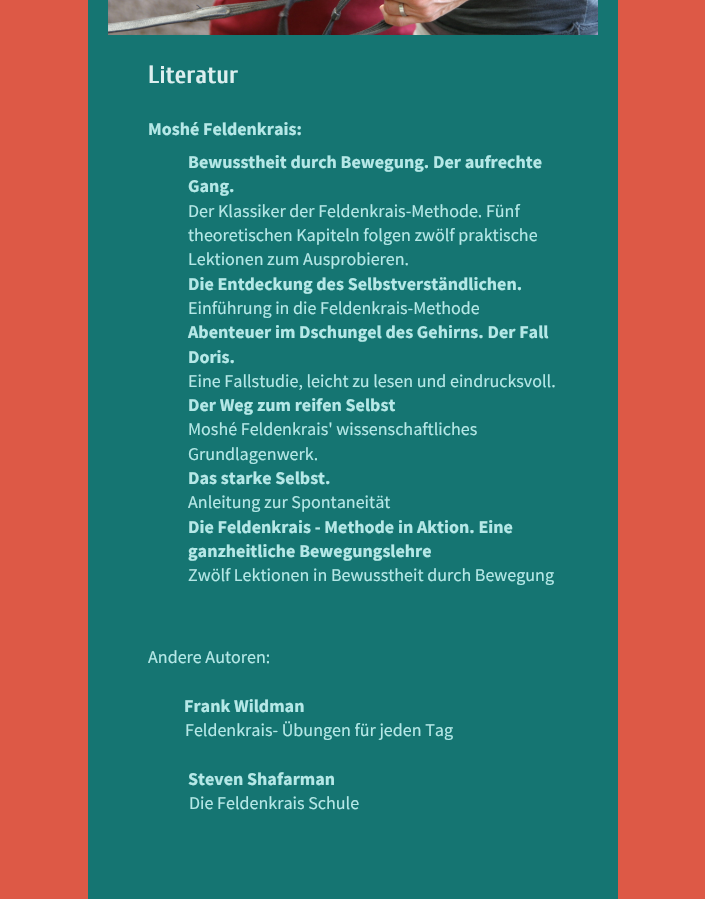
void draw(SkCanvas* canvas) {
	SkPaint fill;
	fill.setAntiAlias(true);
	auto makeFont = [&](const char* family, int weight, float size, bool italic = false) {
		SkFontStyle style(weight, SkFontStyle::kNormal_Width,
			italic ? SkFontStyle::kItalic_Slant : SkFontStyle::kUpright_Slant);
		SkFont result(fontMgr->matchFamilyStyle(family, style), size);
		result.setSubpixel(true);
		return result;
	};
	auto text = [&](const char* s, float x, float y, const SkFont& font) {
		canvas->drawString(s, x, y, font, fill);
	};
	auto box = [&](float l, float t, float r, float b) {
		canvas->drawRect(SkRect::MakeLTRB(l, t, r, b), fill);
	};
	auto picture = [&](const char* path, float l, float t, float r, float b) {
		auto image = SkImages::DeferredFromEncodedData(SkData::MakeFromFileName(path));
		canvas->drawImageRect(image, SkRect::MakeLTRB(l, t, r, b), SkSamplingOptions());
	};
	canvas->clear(0xFFDD5946);
	fill.setColor(0xFF157572);
	box(88, 0, 618, 899);
	picture("image0.png", 108, 0, 598, 35);
	auto font1 = makeFont("Cuprum", 700, 25);
	fill.setColor(0xFFDCEFEF);
	text("Literatur", 148, 83, font1);
	auto font2 = makeFont("Source Sans Pro", 700, 18);
	fill.setColor(0xFFB5E8E7);
	text("Moshé Feldenkrais:", 148, 135, font2);
	text("Bewusstheit durch Bewegung. Der aufrechte", 188, 168, font2);
	text("Gang.", 188, 192, font2);
	auto font3 = makeFont("Source Sans Pro", 400, 18);
	text("Der Klassiker der Feldenkrais-Methode. Fünf", 188, 217, font3);
	text("theoretischen Kapiteln folgen zwölf praktische", 188, 241, font3);
	text("Lektionen zum Ausprobieren.", 188, 265, font3);
	text("Die Entdeckung des Selbstverständlichen.", 188, 290, font2);
	text("Einführung in die Feldenkrais-Methode", 188, 314, font3);
	text("Abenteuer im Dschungel des Gehirns. Der Fall", 188, 338, font2);
	text("Doris.", 188, 363, font2);
	text("Eine Fallstudie, leicht zu lesen und eindrucksvoll.", 188, 387, font3);
	text("Der Weg zum reifen Selbst", 188, 411, font2);
	text("Moshé Feldenkrais' wissenschaftliches", 188, 435, font3);
	text("Grundlagenwerk.", 188, 460, font3);
	text("Das starke Selbst.", 188, 484, font2);
	text("Anleitung zur Spontaneität", 188, 508, font3);
	text("Die Feldenkrais - Methode in Aktion. Eine", 188, 533, font2);
	text("ganzheitliche Bewegungslehre", 188, 557, font2);
	text("Zwölf Lektionen in Bewusstheit durch Bewegung", 188, 581, font3);
	text("Andere Autoren:", 148, 663, font3);
	text("Frank Wildman", 184, 712, font2);
	text("Feldenkrais- Übungen für jeden Tag", 185, 736, font3);
	text("Steven Shafarman", 188, 785, font2);
	text("Die Feldenkrais Schule", 189, 809, font3);
}
